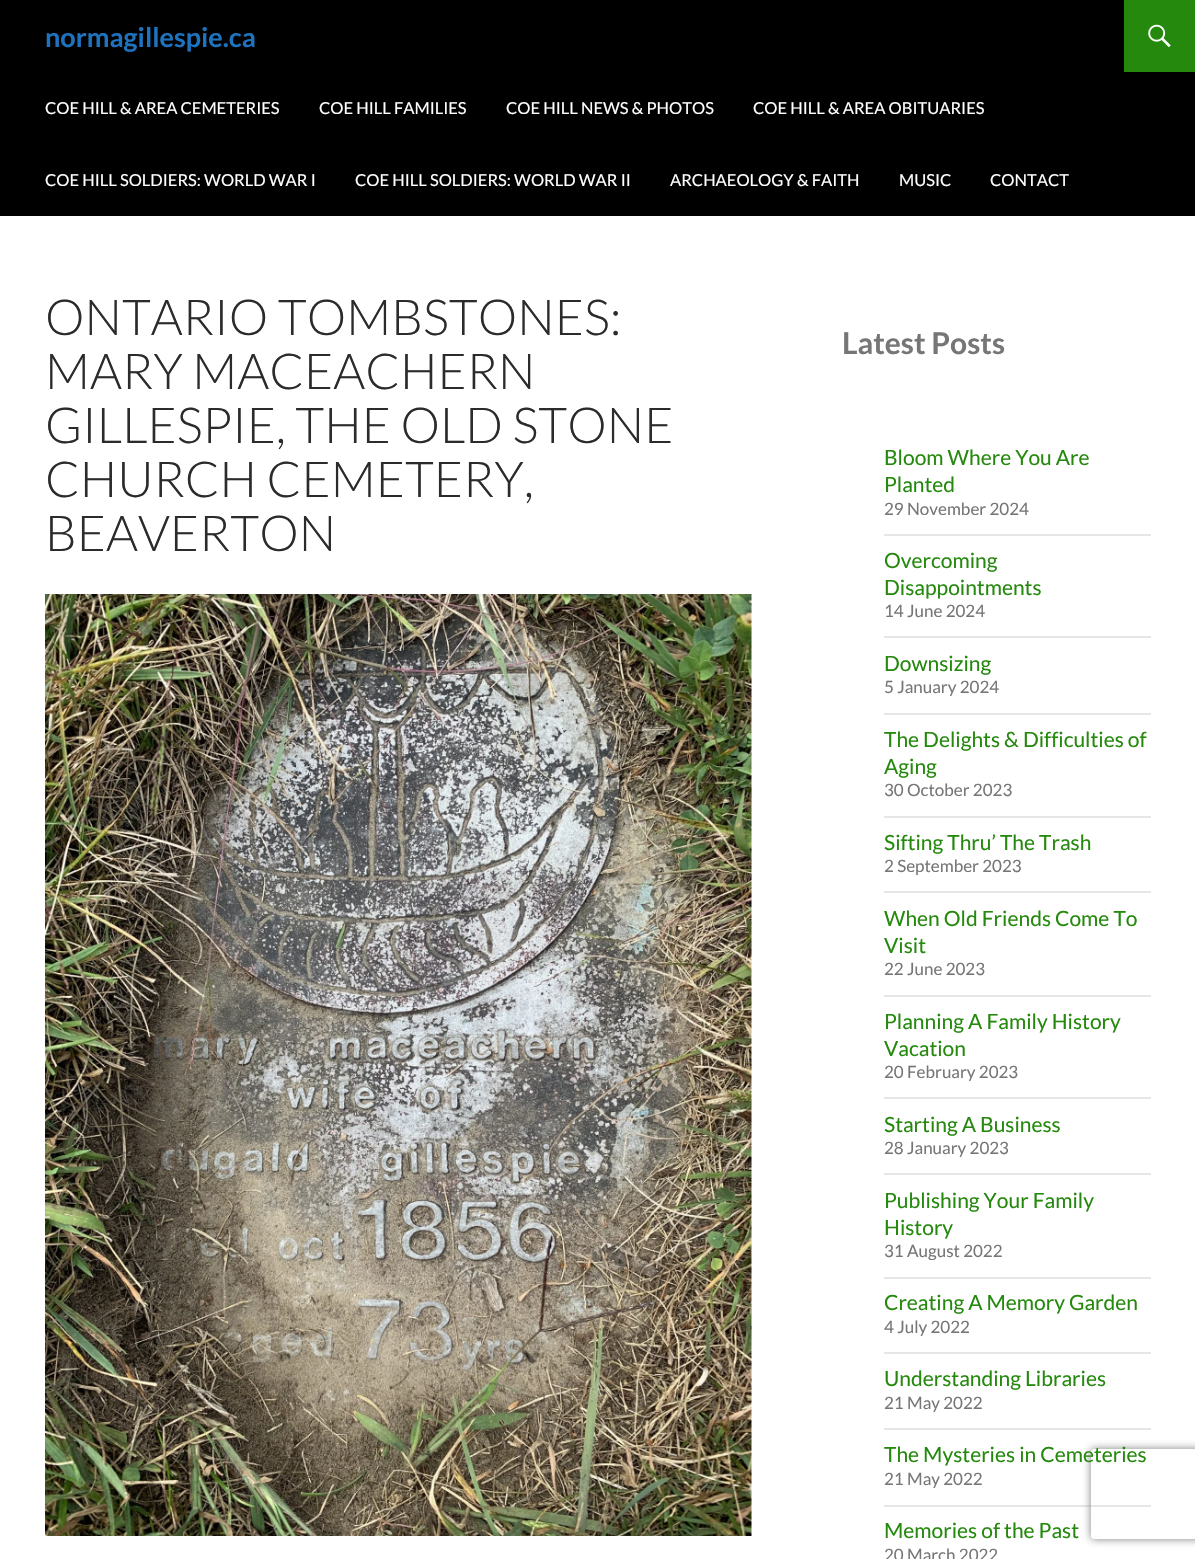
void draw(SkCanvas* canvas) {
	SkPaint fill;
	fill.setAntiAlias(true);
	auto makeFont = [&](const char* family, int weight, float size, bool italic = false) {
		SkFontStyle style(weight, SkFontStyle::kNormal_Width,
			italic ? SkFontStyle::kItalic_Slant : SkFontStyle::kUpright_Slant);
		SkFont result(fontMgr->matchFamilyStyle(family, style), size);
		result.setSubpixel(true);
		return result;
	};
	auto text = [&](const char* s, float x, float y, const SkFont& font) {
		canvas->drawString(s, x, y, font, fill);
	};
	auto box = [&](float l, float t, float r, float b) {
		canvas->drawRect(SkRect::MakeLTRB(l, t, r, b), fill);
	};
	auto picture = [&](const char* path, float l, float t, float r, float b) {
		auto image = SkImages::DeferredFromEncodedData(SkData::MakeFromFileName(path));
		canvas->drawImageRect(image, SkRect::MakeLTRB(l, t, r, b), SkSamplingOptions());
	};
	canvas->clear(0xFFFFFFFF);
	fill.setColor(0xFF000000);
	box(0, 0, 1195, 216);
	fill.setColor(0xFF24890D);
	box(1124, 0, 1195, 72);
	picture("image0.png", 1148, 24, 1171, 48);
	picture("image1.png", 45, 594, 752, 1536);
	fill.setColor(0xFFE6E6E6);
	box(884, 534, 1151, 536);
	box(884, 636, 1151, 638);
	box(884, 713, 1151, 715);
	box(884, 816, 1151, 818);
	box(884, 891, 1151, 893);
	box(884, 995, 1151, 997);
	box(884, 1097, 1151, 1099);
	box(884, 1173, 1151, 1175);
	box(884, 1277, 1151, 1279);
	box(884, 1352, 1151, 1354);
	box(884, 1428, 1151, 1430);
	box(884, 1505, 1151, 1507);
	canvas->save();
	canvas->clipPath(SkPathBuilder(SkPathFillType::kEvenOdd).moveTo(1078, 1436).lineTo(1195, 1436).lineTo(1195, 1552).lineTo(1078, 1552).close().moveTo(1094, 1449).lineTo(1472, 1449).cubicTo(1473.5f, 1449, 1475, 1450.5f, 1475, 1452).lineTo(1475, 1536).cubicTo(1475, 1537.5f, 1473.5f, 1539, 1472, 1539).lineTo(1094, 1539).cubicTo(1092.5f, 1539, 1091, 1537.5f, 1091, 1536).lineTo(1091, 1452).cubicTo(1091, 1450.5f, 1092.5f, 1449, 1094, 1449).close().detach(), true);
	fill.setColor(0xFF808080);
	fill.setMaskFilter(SkMaskFilter::MakeBlur(kNormal_SkBlurStyle, 4));
	canvas->drawRoundRect(SkRect::MakeLTRB(1091, 1449, 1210, 1539), 3, 3, fill);
	fill.setMaskFilter(nullptr);
	canvas->restore();
	auto font1 = makeFont("Lato", 700, 27);
	fill.setColor(0xFF1E73BE);
	text("normagillespie.ca", 45, 47, font1);
	auto font2 = makeFont("Lato", 400, 16.5f);
	fill.setColor(0xFFFFFFFF);
	text("COE HILL & AREA CEMETERIES", 45, 114, font2);
	text("COE HILL FAMILIES", 319, 114, font2);
	text("COE HILL NEWS & PHOTOS", 506, 114, font2);
	text("COE HILL & AREA OBITUARIES", 753, 114, font2);
	text("COE HILL SOLDIERS: WORLD WAR I", 45, 186, font2);
	text("COE HILL SOLDIERS: WORLD WAR II", 355, 186, font2);
	text("ARCHAEOLOGY & FAITH", 670, 186, font2);
	text("MUSIC", 899, 186, font2);
	text("CONTACT", 990, 186, font2);
	auto font3 = makeFont("Lato", 300, 49.5f);
	fill.setColor(0xFF2B2B2B);
	text("ONTARIO TOMBSTONES:", 45, 335, font3);
	text("MARY MACEACHERN", 45, 389, font3);
	text("GILLESPIE, THE OLD STONE", 45, 443, font3);
	text("CHURCH CEMETERY,", 45, 497, font3);
	text("BEAVERTON", 45, 551, font3);
	auto font4 = makeFont("Lato", 700, 30);
	fill.setColor(0xFF767676);
	text("Latest Posts", 842, 354, font4);
	auto font5 = makeFont("Lato", 400, 21);
	fill.setColor(0xFF24890D);
	text("Bloom Where You Are", 884, 465, font5);
	text("Planted", 884, 492, font5);
	auto font6 = makeFont("Lato", 400, 17);
	fill.setColor(0xFF767676);
	text("29 November 2024", 884, 515, font6);
	fill.setColor(0xFF24890D);
	text("Overcoming", 884, 568, font5);
	text("Disappointments", 884, 595, font5);
	fill.setColor(0xFF767676);
	text("14 June 2024", 884, 617, font6);
	fill.setColor(0xFF24890D);
	text("Downsizing", 884, 671, font5);
	fill.setColor(0xFF767676);
	text("5 January 2024", 884, 693, font6);
	fill.setColor(0xFF24890D);
	text("The Delights & Difficulties of", 884, 747, font5);
	text("Aging", 884, 774, font5);
	fill.setColor(0xFF767676);
	text("30 October 2023", 884, 796, font6);
	fill.setColor(0xFF24890D);
	text("Sifting Thru’ The Trash", 884, 850, font5);
	fill.setColor(0xFF767676);
	text("2 September 2023", 884, 872, font6);
	fill.setColor(0xFF24890D);
	text("When Old Friends Come To", 884, 926, font5);
	text("Visit", 884, 953, font5);
	fill.setColor(0xFF767676);
	text("22 June 2023", 884, 975, font6);
	fill.setColor(0xFF24890D);
	text("Planning A Family History", 884, 1029, font5);
	text("Vacation", 884, 1056, font5);
	fill.setColor(0xFF767676);
	text("20 February 2023", 884, 1078, font6);
	fill.setColor(0xFF24890D);
	text("Starting A Business", 884, 1132, font5);
	fill.setColor(0xFF767676);
	text("28 January 2023", 884, 1154, font6);
	fill.setColor(0xFF24890D);
	text("Publishing Your Family", 884, 1208, font5);
	text("History", 884, 1235, font5);
	fill.setColor(0xFF767676);
	text("31 August 2022", 884, 1257, font6);
	fill.setColor(0xFF24890D);
	text("Creating A Memory Garden", 884, 1310, font5);
	fill.setColor(0xFF767676);
	text("4 July 2022", 884, 1333, font6);
	fill.setColor(0xFF24890D);
	text("Understanding Libraries", 884, 1386, font5);
	fill.setColor(0xFF767676);
	text("21 May 2022", 884, 1409, font6);
	fill.setColor(0xFF24890D);
	text("The Mysteries in Cemeteries", 884, 1462, font5);
	fill.setColor(0xFF767676);
	text("21 May 2022", 884, 1485, font6);
	fill.setColor(0xFF24890D);
	text("Memories of the Past", 884, 1538, font5);
	fill.setColor(0xFF767676);
	text("20 March 2022", 884, 1561, font6);
}
